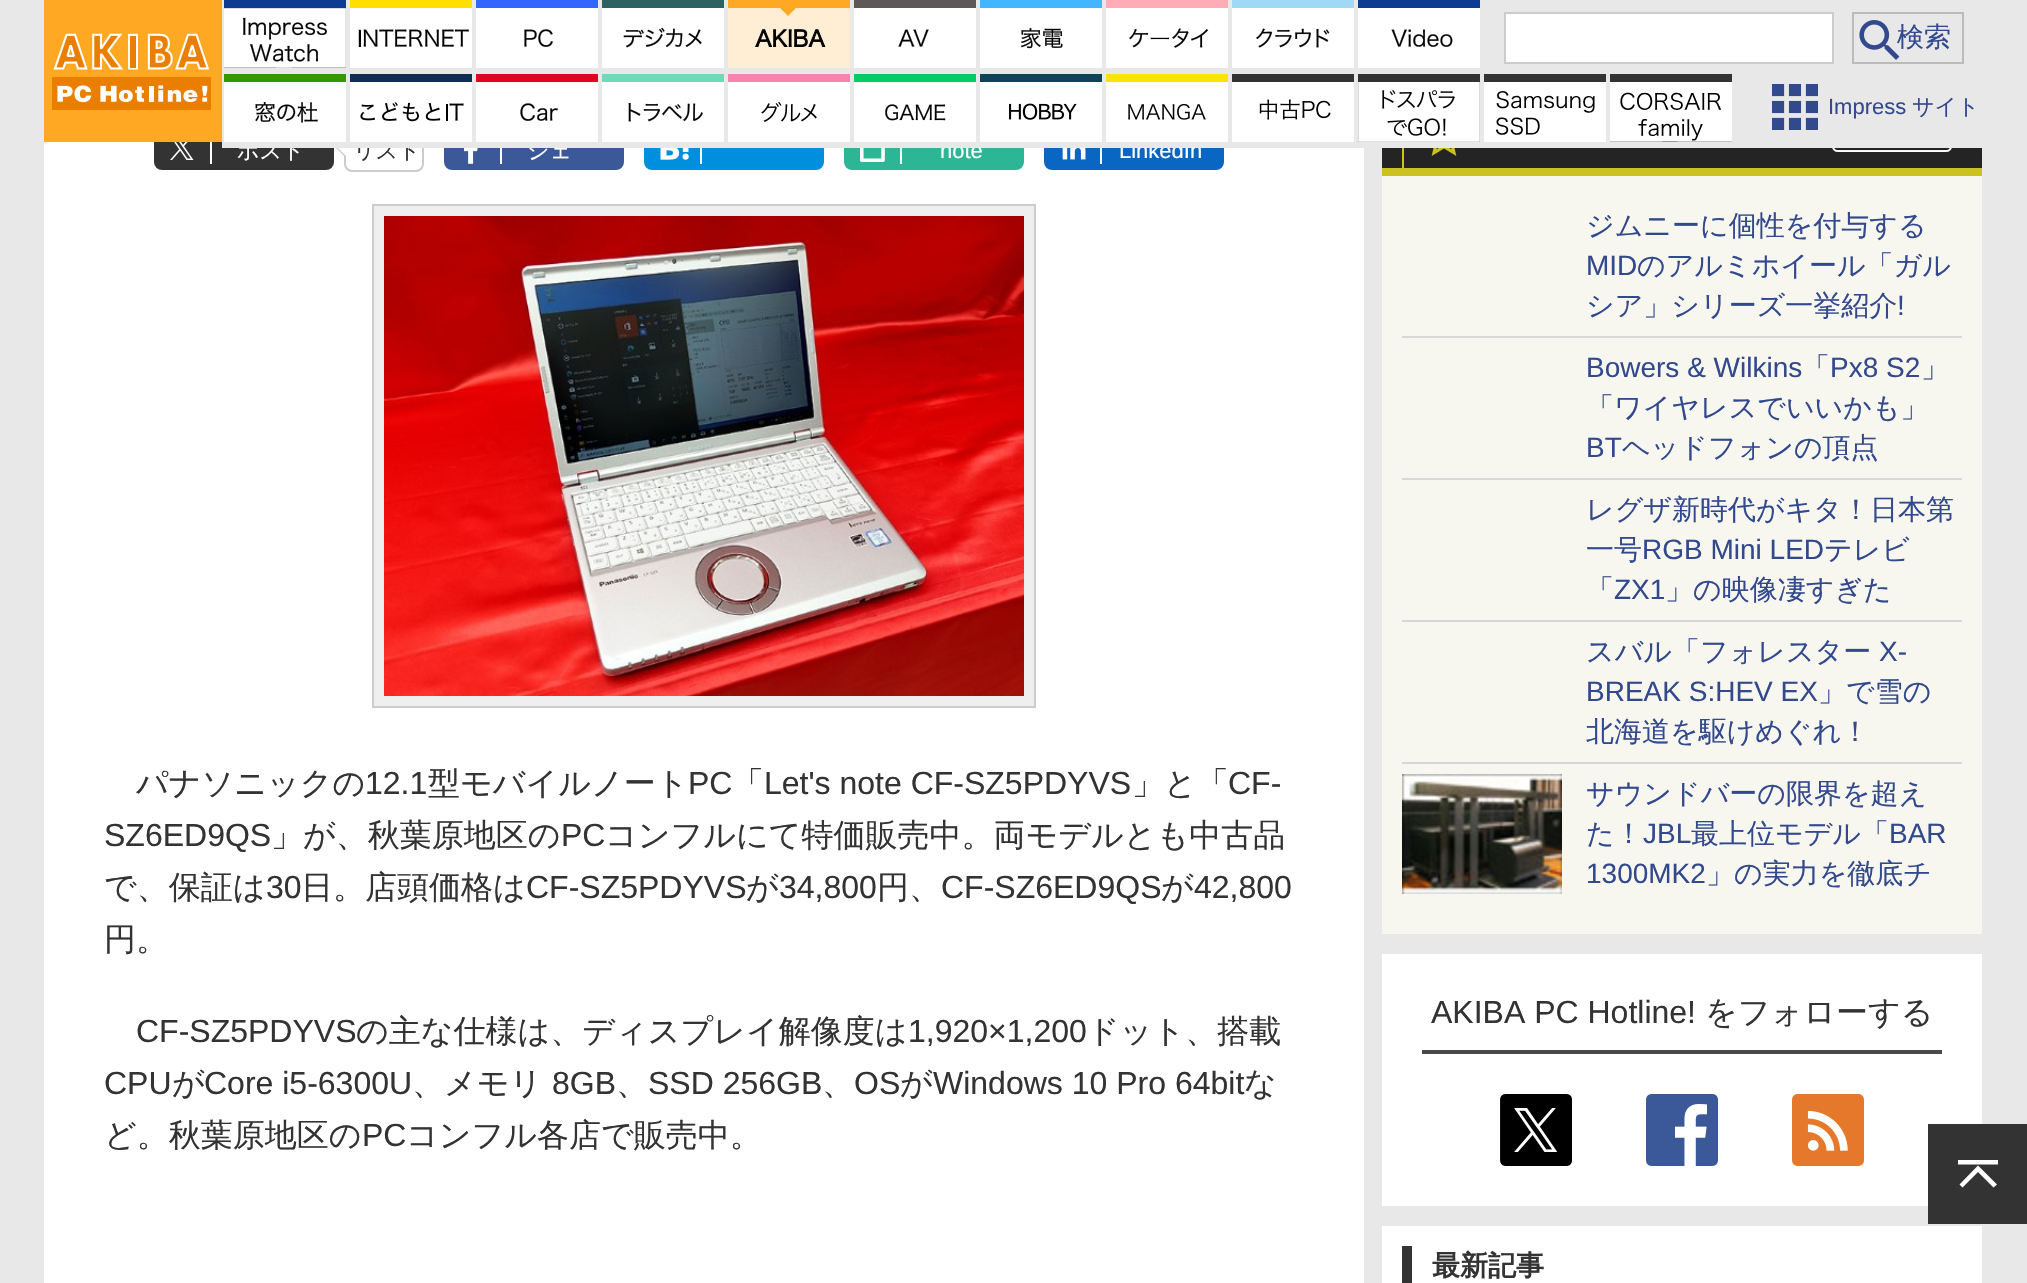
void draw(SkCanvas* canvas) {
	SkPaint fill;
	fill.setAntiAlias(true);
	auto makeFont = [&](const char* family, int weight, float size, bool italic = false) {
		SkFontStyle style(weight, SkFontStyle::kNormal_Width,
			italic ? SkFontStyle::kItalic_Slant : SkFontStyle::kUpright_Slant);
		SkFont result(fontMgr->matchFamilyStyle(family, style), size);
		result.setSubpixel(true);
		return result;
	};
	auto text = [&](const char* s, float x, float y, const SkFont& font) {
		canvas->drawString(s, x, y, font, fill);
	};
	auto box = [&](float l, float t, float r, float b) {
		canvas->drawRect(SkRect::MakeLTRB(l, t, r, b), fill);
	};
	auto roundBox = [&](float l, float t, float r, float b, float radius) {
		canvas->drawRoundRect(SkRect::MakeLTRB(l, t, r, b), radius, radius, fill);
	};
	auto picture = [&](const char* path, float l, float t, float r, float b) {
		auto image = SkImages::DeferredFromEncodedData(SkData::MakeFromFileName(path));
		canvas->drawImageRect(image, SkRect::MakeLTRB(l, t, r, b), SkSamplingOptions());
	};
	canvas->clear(0xFFE8E8E8);
	fill.setColor(0xFFFFFFFF);
	box(44, 142, 1364, 1283);
	fill.setColor(0xFF333333);
	roundBox(154, 126, 334, 170, 8);
	fill.setColor(0xFFFFA824);
	box(44, 0, 222, 142);
	picture("image0.png", 52, 33, 211, 110);
	fill.setColor(0xFF0D3B91);
	box(224, 0, 346, 8);
	picture("image1.png", 224, 8, 346, 68);
	fill.setColor(0xFFFFDE00);
	box(350, 0, 472, 8);
	picture("image2.png", 350, 8, 472, 68);
	fill.setColor(0xFF3366FF);
	box(476, 0, 598, 8);
	picture("image3.png", 476, 8, 598, 68);
	fill.setColor(0xFF2E6162);
	box(602, 0, 724, 8);
	picture("image4.png", 602, 8, 724, 68);
	fill.setColor(0xFFFFA824);
	box(728, 0, 850, 68);
	picture("image5.png", 728, 8, 850, 68);
	fill.setColor(0xFF5E5858);
	box(854, 0, 976, 8);
	picture("image6.png", 854, 8, 976, 68);
	fill.setColor(0xFF42B6FF);
	box(980, 0, 1102, 8);
	picture("image7.png", 980, 8, 1102, 68);
	fill.setColor(0xFFFFACB7);
	box(1106, 0, 1228, 8);
	picture("image8.png", 1106, 8, 1228, 68);
	fill.setColor(0xFF9FD9F6);
	box(1232, 0, 1354, 8);
	picture("image9.png", 1232, 8, 1354, 68);
	fill.setColor(0xFF0D3B91);
	box(1358, 0, 1480, 8);
	picture("image10.png", 1358, 8, 1480, 68);
	fill.setColor(0xFFFFFFFF);
	canvas->drawRect(SkRect::MakeLTRB(1505, 13, 1833, 63), fill);
	fill.setStyle(SkPaint::kStroke_Style);
	fill.setStrokeWidth(2);
	fill.setColor(0xFFCCCCCC);
	canvas->drawRect(SkRect::MakeLTRB(1505, 13, 1833, 63), fill);
	picture("image11.png", 1859, 20, 1900, 60);
	fill.setColor(0xFFBBBBBB);
	canvas->drawRect(SkRect::MakeLTRB(1853, 13, 1963, 63), fill);
	fill.setStyle(SkPaint::kFill_Style);
	fill.setColor(0xFF339900);
	box(224, 74, 346, 82);
	fill.setColor(0xFF102C54);
	box(350, 74, 472, 82);
	fill.setColor(0xFFE30121);
	box(476, 74, 598, 82);
	fill.setColor(0xFF6EDAB8);
	box(602, 74, 724, 82);
	fill.setColor(0xFFF583AE);
	box(728, 74, 850, 82);
	fill.setColor(0xFF00CC66);
	box(854, 74, 976, 82);
	fill.setColor(0xFF0E4459);
	box(980, 74, 1102, 82);
	fill.setColor(0xFFFFE200);
	box(1106, 74, 1228, 82);
	fill.setColor(0xFF333333);
	box(1232, 74, 1354, 82);
	box(1484, 74, 1606, 82);
	picture("image22.png", 1484, 82, 1606, 142);
	box(1610, 74, 1732, 142);
	picture("image23.png", 1610, 82, 1732, 142);
	picture("image24.png", 1772, 84, 1818, 130);
	picture("image25.png", 170, 142, 194, 160);
	fill.setColor(0xFFFFFFFF);
	box(210, 142, 212, 164);
	fill.setStyle(SkPaint::kStroke_Style);
	fill.setColor(0xFFCCCCCC);
	canvas->drawRoundRect(SkRect::MakeLTRB(345, 125, 423, 171), 7, 7, fill);
	fill.setStyle(SkPaint::kFill_Style);
	canvas->drawPath(SkPathBuilder().moveTo(346, 138).lineTo(346, 158).lineTo(336, 148).close().detach(), fill);
	fill.setColor(0xFFFFFFFF);
	canvas->drawPath(SkPathBuilder().moveTo(348, 138).lineTo(348, 158).lineTo(338, 148).close().detach(), fill);
	fill.setColor(0xFF3B5998);
	roundBox(444, 126, 624, 170, 8);
	picture("image26.png", 464, 148, 478, 164);
	fill.setColor(0xFFFFFFFF);
	box(500, 148, 502, 164);
	fill.setColor(0xFF008FDE);
	roundBox(644, 126, 824, 170, 8);
	picture("image27.png", 660, 148, 689, 160);
	fill.setColor(0xFFFFFFFF);
	box(700, 148, 702, 164);
	fill.setColor(0xFF2DB696);
	roundBox(844, 126, 1024, 170, 8);
	picture("image28.png", 860, 148, 885, 162);
	fill.setColor(0xFFFFFFFF);
	box(900, 148, 902, 164);
	fill.setColor(0xFF0966C2);
	roundBox(1044, 126, 1224, 170, 8);
	picture("image29.png", 1062, 148, 1086, 160);
	fill.setColor(0xFFFFFFFF);
	box(1100, 148, 1102, 164);
	fill.setColor(0xFFEFEFEF);
	canvas->drawRect(SkRect::MakeLTRB(373, 205, 1035, 707), fill);
	fill.setStyle(SkPaint::kStroke_Style);
	fill.setColor(0xFFCCCCCC);
	canvas->drawRect(SkRect::MakeLTRB(373, 205, 1035, 707), fill);
	picture("image30.png", 384, 216, 1024, 696);
	fill.setStyle(SkPaint::kFill_Style);
	fill.setColor(0xFFF7F7EF);
	box(1382, 176, 1982, 934);
	fill.setColor(0xFF242424);
	box(1382, 148, 1982, 168);
	fill.setColor(0xFFCBC121);
	box(1382, 168, 1982, 176);
	box(1402, 148, 1404, 176);
	picture("image31.png", 1431, 148, 1457, 156);
	picture("image32.png", 1832, 148, 1952, 152);
	fill.setColor(0xFFD8D8D8);
	box(1402, 336, 1962, 338);
	box(1402, 478, 1962, 480);
	box(1402, 620, 1962, 622);
	box(1402, 762, 1962, 764);
	picture("image33.png", 1402, 774, 1562, 894);
	fill.setColor(0xFFFFFFFF);
	box(1382, 954, 1982, 1206);
	fill.setColor(0xFF4A4A4A);
	box(1422, 1050, 1942, 1054);
	picture("image34.png", 1500, 1094, 1572, 1166);
	picture("image35.png", 1646, 1094, 1718, 1166);
	picture("image36.png", 1792, 1094, 1864, 1166);
	fill.setColor(0xFFFFFFFF);
	box(1382, 1226, 1982, 1283);
	fill.setColor(0xFF333333);
	box(1402, 1246, 1412, 1283);
	box(1928, 1124, 2027, 1224);
	fill.setColor(0xFFFFFFFF);
	canvas->drawPath(SkPathBuilder(SkPathFillType::kEvenOdd).moveTo(1958, 1164.5f).lineTo(1998, 1164.5f).lineTo(1998, 1160).lineTo(1958, 1160).close().moveTo(1959.5f, 1184.5f).lineTo(1962.5f, 1187.5f).lineTo(1978, 1172).lineTo(1993.5f, 1187.5f).lineTo(1997, 1184.5f).lineTo(1978, 1165.5f).close().detach(), fill);
	auto font1 = makeFont("WenQuanYi Zen Hei", 500, 27);
	fill.setColor(0xFF33498E);
	text("検索", 1897, 46, font1);
	auto font2 = makeFont("Liberation Sans", 400, 22);
	text("Impress", 1828, 114, font2);
	auto font3 = makeFont("WenQuanYi Zen Hei", 500, 22);
	text("サイト", 1912, 114, font3);
	fill.setColor(0xFFFFFFFF);
	text("ポスト", 237, 158, font3);
	fill.setColor(0xFF333333);
	text("リスト", 353, 158, font3);
	fill.setColor(0xFFFFFFFF);
	text("シェ", 527, 158, font3);
	text("note", 940, 158, font2);
	text("LinkedIn", 1119, 158, font2);
	fill.setColor(0xFFE8E8E8);
	box(222, 124, 1364, 148);
	fill.setColor(0xFF333333);
	box(1358, 74, 1480, 142);
	picture("image21.png", 1358, 82, 1480, 142);
	picture("image20.png", 1232, 82, 1354, 142);
	picture("image19.png", 1106, 82, 1228, 142);
	picture("image18.png", 980, 82, 1102, 142);
	picture("image17.png", 854, 82, 976, 142);
	picture("image16.png", 728, 82, 850, 142);
	picture("image15.png", 602, 82, 724, 142);
	picture("image14.png", 476, 82, 598, 142);
	picture("image13.png", 350, 82, 472, 142);
	picture("image12.png", 224, 82, 346, 142);
	auto font4 = makeFont("WenQuanYi Zen Hei", 500, 32);
	text("パナソニックの", 136, 794, font4);
	auto font5 = makeFont("Liberation Sans", 400, 32);
	text("12.1", 365, 794, font5);
	text("型モバイルノート", 428, 794, font4);
	text("PC", 688, 794, font5);
	text("「", 732, 794, font4);
	text("Let's note CF-SZ5PDYVS", 764, 794, font5);
	text("」と「", 1132, 794, font4);
	text("CF-", 1228, 794, font5);
	text("SZ6ED9QS", 104, 846, font5);
	text("」が、秋葉原地区の", 271, 846, font4);
	text("PC", 561, 846, font5);
	text("コンフルにて特価販売中。両モデルとも中古品", 605, 846, font4);
	text("で、保証は", 104, 898, font4);
	text("30", 266, 898, font5);
	text("日。店頭価格は", 301, 898, font4);
	text("CF-SZ5PDYVS", 526, 898, font5);
	text("が", 746, 898, font4);
	text("34,800", 779, 898, font5);
	text("円、", 877, 898, font4);
	text("CF-SZ6ED9QS", 941, 898, font5);
	text("が", 1161, 898, font4);
	text("42,800", 1194, 898, font5);
	text("円。", 104, 950, font4);
	text("CF-SZ5PDYVS", 136, 1042, font5);
	text("の主な仕様は、ディスプレイ解像度は", 356, 1042, font4);
	text("1,920×1,200", 908, 1042, font5);
	text("ドット、搭載", 1087, 1042, font4);
	text("CPU", 104, 1094, font5);
	text("が", 172, 1094, font4);
	text("Core i5-6300U", 204, 1094, font5);
	text("、メモリ", 412, 1094, font4);
	text("8GB", 552, 1094, font5);
	text("、", 616, 1094, font4);
	text("SSD 256GB", 648, 1094, font5);
	text("、", 822, 1094, font4);
	text("OS", 854, 1094, font5);
	text("が", 900, 1094, font4);
	text("Windows 10 Pro 64bit", 933, 1094, font5);
	text("な", 1244, 1094, font4);
	text("ど。秋葉原地区の", 104, 1146, font4);
	text("PC", 362, 1146, font5);
	text("コンフル各店で販売中。", 406, 1146, font4);
	auto font6 = makeFont("WenQuanYi Zen Hei", 500, 28);
	fill.setColor(0xFF33498E);
	text("ジムニーに個性を付与する", 1586, 235, font6);
	auto font7 = makeFont("Liberation Sans", 400, 28);
	text("MID", 1586, 275, font7);
	text("のアルミホイール「ガル", 1637, 275, font6);
	text("シア」シリーズ一挙紹介", 1586, 315, font6);
	text("!", 1897, 315, font7);
	text("Bowers & Wilkins", 1586, 377, font7);
	text("「", 1802, 377, font6);
	text("Px8 S2", 1830, 377, font7);
	text("」", 1921, 377, font6);
	text("「ワイヤレスでいいかも」", 1586, 417, font6);
	text("BT", 1586, 457, font7);
	text("ヘッドフォンの頂点", 1622, 457, font6);
	text("レグザ新時代がキタ！日本第", 1586, 519, font6);
	text("一号", 1586, 559, font6);
	text("RGB Mini LED", 1642, 559, font7);
	text("テレビ", 1824, 559, font6);
	text("「", 1586, 599, font6);
	text("ZX1", 1614, 599, font7);
	text("」の映像凄すぎた", 1665, 599, font6);
	text("スバル「フォレスター", 1586, 661, font6);
	text("X-", 1879, 661, font7);
	text("BREAK S:HEV EX", 1586, 701, font7);
	text("」で雪の", 1818, 701, font6);
	text("北海道を駆けめぐれ！", 1586, 741, font6);
	text("サウンドバーの限界を超え", 1586, 803, font6);
	text("た！", 1586, 843, font6);
	text("JBL", 1643, 843, font7);
	text("最上位モデル「", 1691, 843, font6);
	text("BAR", 1889, 843, font7);
	text("1300MK2", 1586, 883, font7);
	text("」の実力を徹底チ", 1706, 883, font6);
	fill.setColor(0xFF333333);
	text("AKIBA PC Hotline!", 1431, 1023, font5);
	text("をフォローする", 1705, 1023, font4);
	auto font8 = makeFont("WenQuanYi Zen Hei", 700, 28);
	text("最新記事", 1432, 1275, font8);
}
